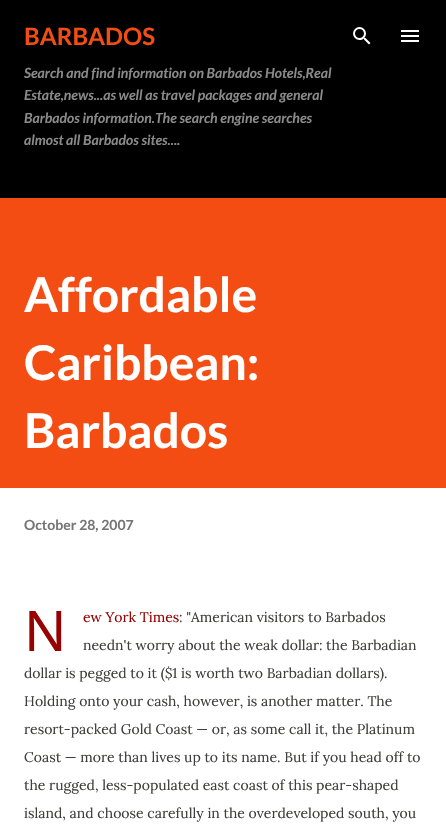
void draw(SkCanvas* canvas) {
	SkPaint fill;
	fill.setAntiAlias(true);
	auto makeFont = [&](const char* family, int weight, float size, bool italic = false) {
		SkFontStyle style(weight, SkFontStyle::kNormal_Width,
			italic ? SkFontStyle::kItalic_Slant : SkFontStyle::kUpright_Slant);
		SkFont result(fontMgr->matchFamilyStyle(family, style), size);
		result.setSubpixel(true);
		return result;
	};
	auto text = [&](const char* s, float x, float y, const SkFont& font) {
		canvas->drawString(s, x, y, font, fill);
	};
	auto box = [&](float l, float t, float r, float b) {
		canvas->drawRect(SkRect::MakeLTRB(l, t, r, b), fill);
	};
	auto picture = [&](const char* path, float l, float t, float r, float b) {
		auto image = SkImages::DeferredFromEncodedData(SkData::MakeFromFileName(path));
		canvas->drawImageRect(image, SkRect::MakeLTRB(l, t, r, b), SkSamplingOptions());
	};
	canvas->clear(0xFFFFFFFF);
	fill.setColor(0xFF000000);
	box(0, 0, 446, 198);
	picture("image0.png", 353, 27, 371, 45);
	picture("image1.png", 401, 30, 419, 42);
	fill.setColor(0xFFF44D14);
	box(0, 198, 446, 488);
	auto font1 = makeFont("Lato", 700, 24);
	text("BARBADOS", 24, 45, font1);
	auto font2 = makeFont("Lato", 700, 14, true);
	fill.setColor(0xFF8A8A8A);
	text("Search and find information on Barbados Hotels,Real", 24, 78, font2);
	text("Estate,news...as well as travel packages and general", 24, 100, font2);
	text("Barbados information.The search engine searches", 24, 123, font2);
	text("almost all Barbados sites....", 24, 145, font2);
	auto font3 = makeFont("Lato", 700, 48);
	fill.setColor(0xFFFFFFFF);
	text("Affordable", 24, 312, font3);
	text("Caribbean:", 24, 380, font3);
	text("Barbados", 24, 448, font3);
	auto font4 = makeFont("Lato", 700, 14);
	fill.setColor(0xFF757575);
	text("October 28, 2007", 24, 530, font4);
	auto font5 = makeFont("Noto Sans", 400, 56);
	fill.setColor(0xFF970101);
	text("N", 24, 651, font5);
	auto font6 = makeFont("Lora", 400, 14);
	text("ew York Times", 83, 622, font6);
	fill.setColor(0xFF3E3F3C);
	text(": \"American visitors to Barbados", 179, 622, font6);
	text("needn't worry about the weak dollar: the Barbadian", 83, 650, font6);
	text("dollar is pegged to it ($1 is worth two Barbadian dollars).", 24, 678, font6);
	text("Holding onto your cash, however, is another matter. The", 24, 706, font6);
	text("resort-packed Gold Coast — or, as some call it, the Platinum", 24, 734, font6);
	text("Coast — more than lives up to its name. But if you head off to", 24, 762, font6);
	text("the rugged, less-populated east coast of this pear-shaped", 24, 790, font6);
	text("island, and choose carefully in the overdeveloped south, you", 24, 818, font6);
}
